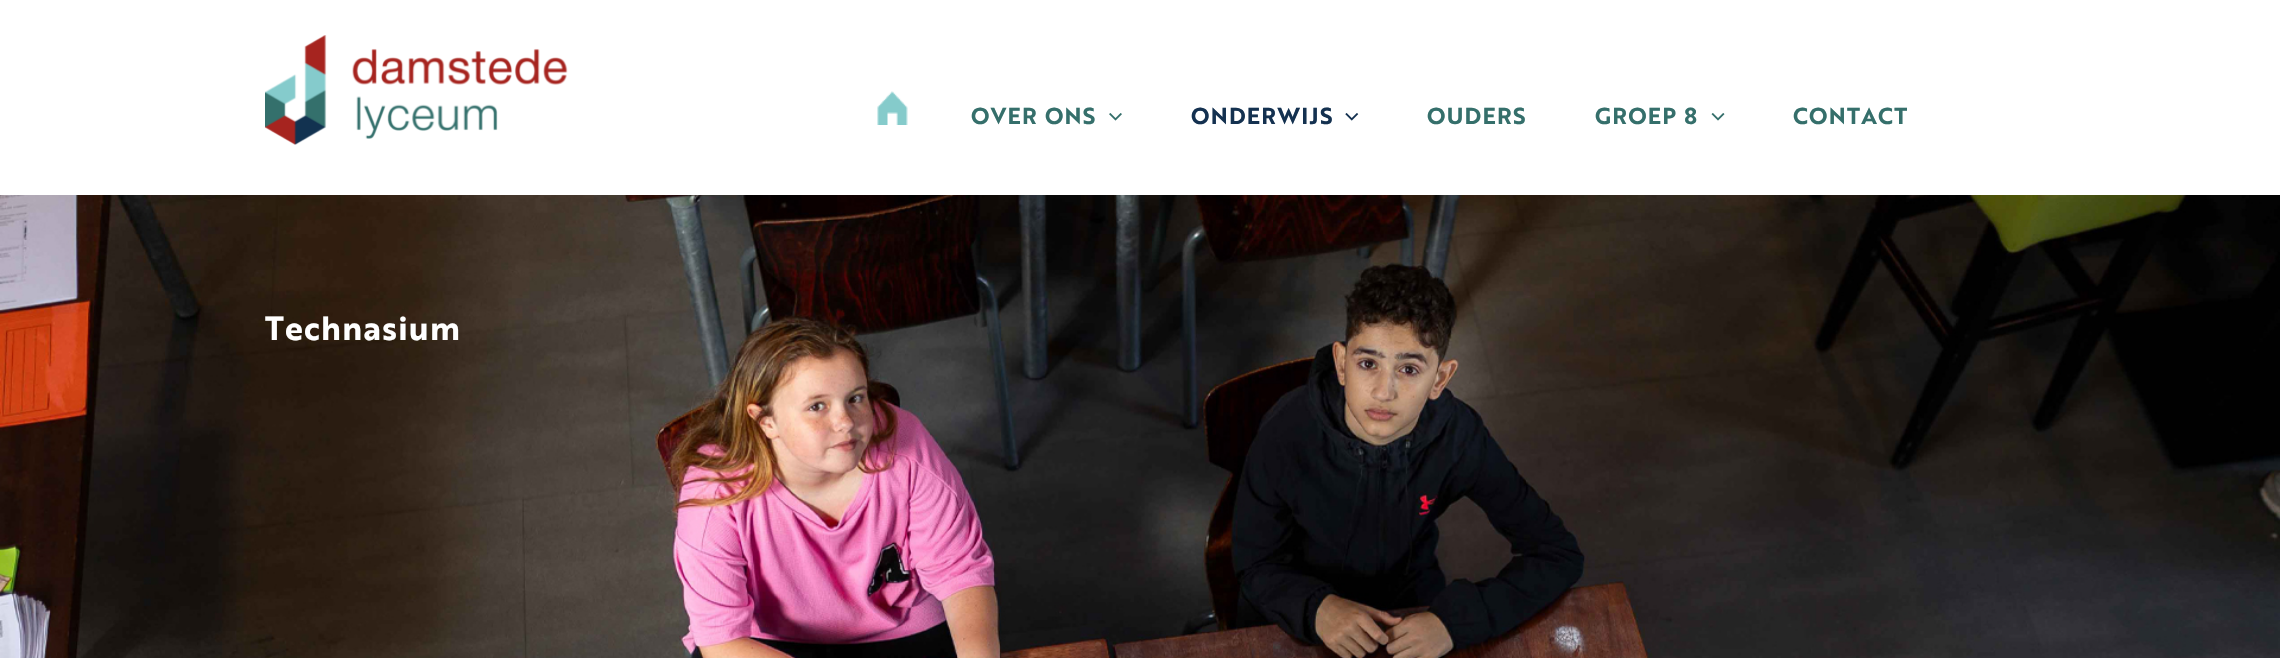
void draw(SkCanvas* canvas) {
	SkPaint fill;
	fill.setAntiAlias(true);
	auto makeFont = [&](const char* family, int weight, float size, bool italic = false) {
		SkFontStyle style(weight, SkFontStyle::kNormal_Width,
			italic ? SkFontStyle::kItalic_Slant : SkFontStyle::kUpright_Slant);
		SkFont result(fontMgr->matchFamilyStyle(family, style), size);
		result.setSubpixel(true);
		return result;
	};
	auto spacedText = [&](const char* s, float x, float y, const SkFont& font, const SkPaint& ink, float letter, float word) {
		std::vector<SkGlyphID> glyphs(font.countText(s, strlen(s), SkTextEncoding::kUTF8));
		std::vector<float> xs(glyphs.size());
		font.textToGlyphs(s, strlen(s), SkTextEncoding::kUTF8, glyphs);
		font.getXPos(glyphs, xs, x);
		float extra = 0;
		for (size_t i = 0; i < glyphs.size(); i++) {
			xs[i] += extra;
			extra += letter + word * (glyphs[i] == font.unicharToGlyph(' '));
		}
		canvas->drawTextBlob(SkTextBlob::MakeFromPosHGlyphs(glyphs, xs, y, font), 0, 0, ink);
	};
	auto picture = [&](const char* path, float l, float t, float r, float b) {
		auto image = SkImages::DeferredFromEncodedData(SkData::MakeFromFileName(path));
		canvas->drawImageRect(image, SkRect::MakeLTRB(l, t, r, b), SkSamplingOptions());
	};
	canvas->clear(0xFFFFFFFF);
	picture("image0.png", 265, 35, 568, 145);
	picture("image1.png", 877, 91, 908, 125);
	picture("image2.png", 1109, 113, 1122, 121);
	picture("image3.png", 1345, 113, 1359, 121);
	picture("image4.png", 1711, 113, 1725, 121);
	picture("image5.png", 0, 195, 2280, 658);
	auto font1 = makeFont("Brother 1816", 700, 22.5f);
	fill.setColor(0xFF356F6B);
	spacedText("OVER ONS", 971, 124, font1, fill, 1.25f, 0);
	fill.setColor(0xFF143150);
	spacedText("ONDERWIJS", 1191, 124, font1, fill, 1.25f, 0);
	fill.setColor(0xFF356F6B);
	spacedText("OUDERS", 1427, 124, font1, fill, 1.25f, 0);
	spacedText("GROEP 8", 1595, 124, font1, fill, 1.25f, 0);
	spacedText("CONTACT", 1793, 124, font1, fill, 1.25f, 0);
	auto font2 = makeFont("Brother 1816", 700, 32.5f);
	fill.setColor(0xFFFFFFFF);
	spacedText("Technasium", 265, 340, font2, fill, 1.25f, 0);
}
